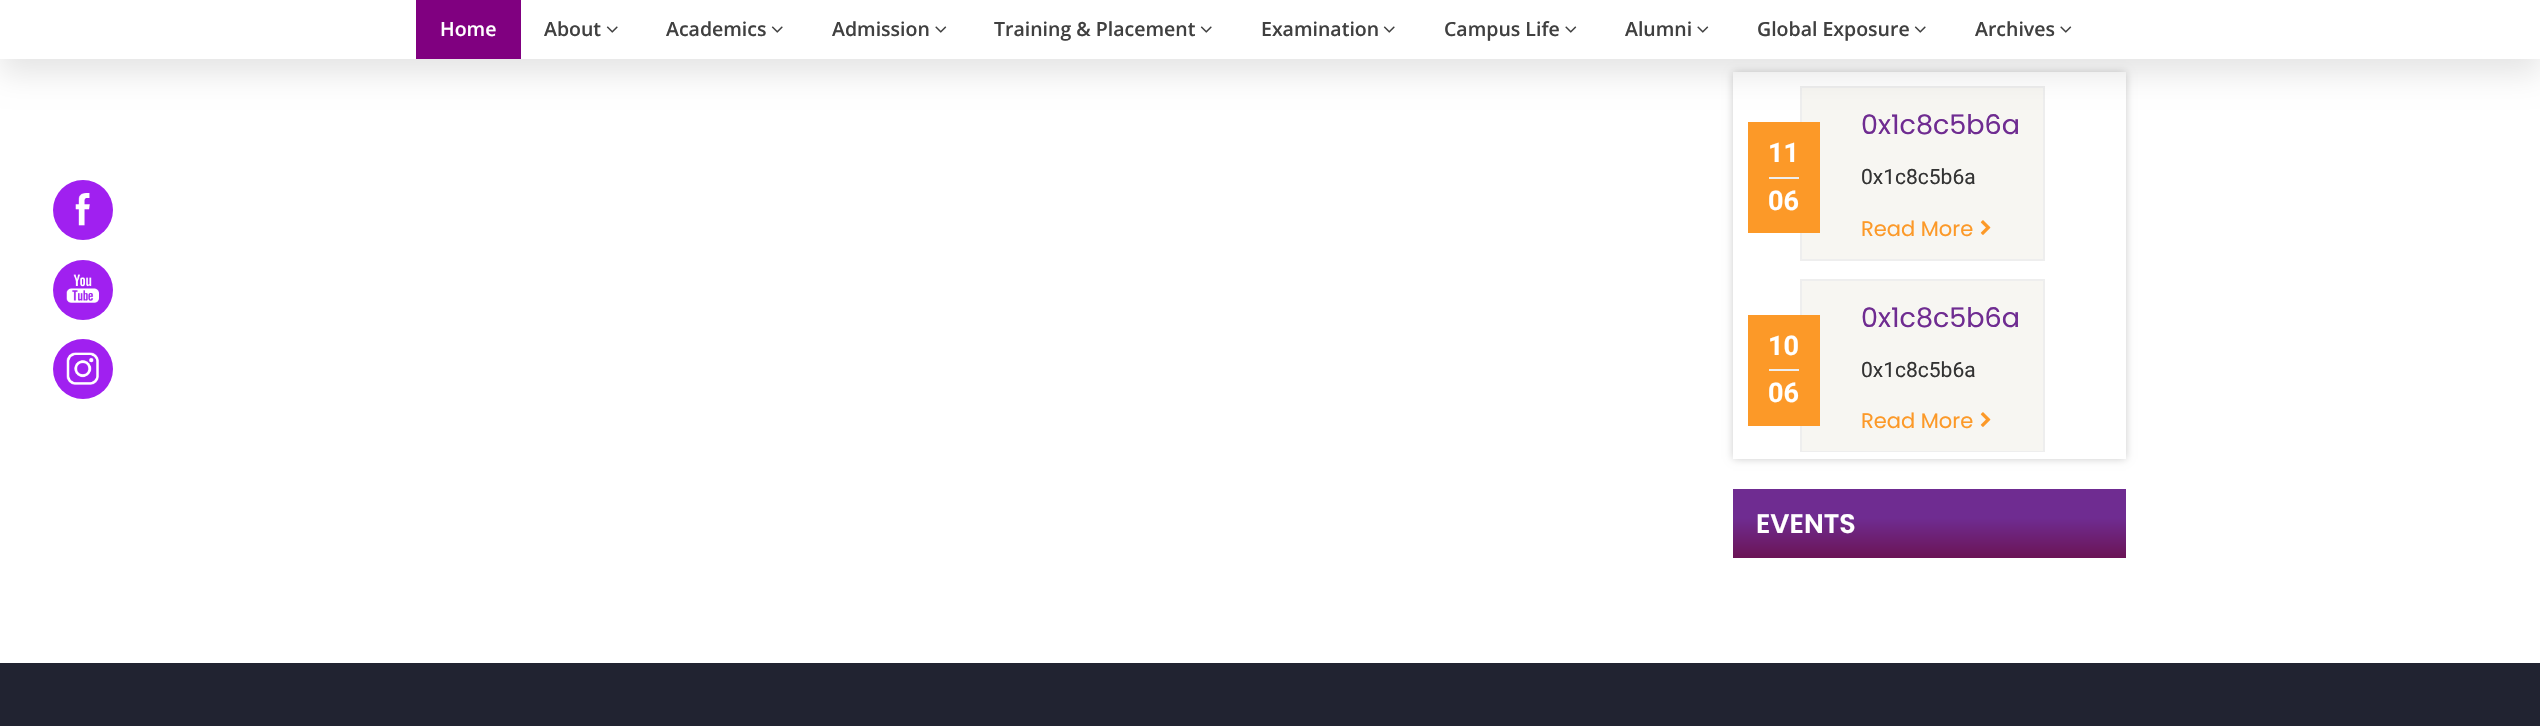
void draw(SkCanvas* canvas) {
	SkPaint fill;
	fill.setAntiAlias(true);
	auto makeFont = [&](const char* family, int weight, float size, bool italic = false) {
		SkFontStyle style(weight, SkFontStyle::kNormal_Width,
			italic ? SkFontStyle::kItalic_Slant : SkFontStyle::kUpright_Slant);
		SkFont result(fontMgr->matchFamilyStyle(family, style), size);
		result.setSubpixel(true);
		return result;
	};
	auto text = [&](const char* s, float x, float y, const SkFont& font) {
		canvas->drawString(s, x, y, font, fill);
	};
	auto box = [&](float l, float t, float r, float b) {
		canvas->drawRect(SkRect::MakeLTRB(l, t, r, b), fill);
	};
	auto picture = [&](const char* path, float l, float t, float r, float b) {
		auto image = SkImages::DeferredFromEncodedData(SkData::MakeFromFileName(path));
		canvas->drawImageRect(image, SkRect::MakeLTRB(l, t, r, b), SkSamplingOptions());
	};
	canvas->clear(0xFFFFFFFF);
	fill.setColor(0xFFA020F0);
	canvas->drawCircle(83, 210, 30, fill);
	picture("image0.png", 75, 193, 90, 226);
	canvas->drawCircle(83, 290, 30, fill);
	picture("image1.png", 66, 274, 99, 303);
	canvas->drawCircle(83, 369, 30, fill);
	picture("image2.png", 66, 352, 99, 385);
	fill.setColor(0xFFCCCCCC);
	fill.setMaskFilter(SkMaskFilter::MakeBlur(kNormal_SkBlurStyle, 4));
	canvas->drawRect(SkRect::MakeLTRB(1733, 72, 2126, 459), fill);
	fill.setMaskFilter(nullptr);
	fill.setColor(0xFFFFFFFF);
	box(1733, 72, 2126, 459);
	fill.setColor(0xFFF7F6F2);
	canvas->drawRect(SkRect::MakeLTRB(1801, 87, 2044, 260), fill);
	fill.setStyle(SkPaint::kStroke_Style);
	fill.setStrokeWidth(2);
	fill.setColor(0xFFEEEEEE);
	canvas->drawRect(SkRect::MakeLTRB(1801, 87, 2044, 260), fill);
	canvas->save();
	canvas->clipPath(SkPathBuilder(SkPathFillType::kEvenOdd).moveTo(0, 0).lineTo(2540, 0).lineTo(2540, 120).lineTo(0, 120).close().moveTo(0, 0).lineTo(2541, 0).lineTo(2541, 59).lineTo(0, 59).close().detach(), true);
	fill.setStyle(SkPaint::kFill_Style);
	fill.setColor(0x1A000000);
	fill.setMaskFilter(SkMaskFilter::MakeBlur(kNormal_SkBlurStyle, 15));
	canvas->drawRect(SkRect::MakeLTRB(0, 15, 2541, 74), fill);
	fill.setMaskFilter(nullptr);
	canvas->restore();
	fill.setColor(0xFFFFFFFF);
	box(521, 58, 2126, 59);
	fill.setColor(0xFF800080);
	box(416, 0, 521, 59);
	picture("image3.png", 606, 26, 618, 33);
	picture("image3.png", 771, 26, 783, 33);
	picture("image4.png", 935, 26, 947, 33);
	picture("image3.png", 1200, 26, 1212, 33);
	picture("image3.png", 1383, 26, 1395, 33);
	picture("image4.png", 1565, 26, 1577, 33);
	picture("image4.png", 1697, 26, 1709, 33);
	picture("image3.png", 1914, 26, 1926, 33);
	picture("image4.png", 2060, 26, 2072, 33);
	fill.setColor(0xFFFC9928);
	box(1748, 122, 1820, 233);
	fill.setColor(0xFFEEEEEE);
	box(1769, 177, 1799, 179);
	picture("image5.png", 1980, 220, 1991, 235);
	fill.setColor(0xFFF7F6F2);
	box(1802, 281, 2043, 451);
	canvas->save();
	canvas->clipRect(SkRect::MakeLTRB(1740, 80, 2118, 452));
	fill.setStyle(SkPaint::kStroke_Style);
	fill.setColor(0xFFEEEEEE);
	canvas->drawRect(SkRect::MakeLTRB(1801, 280, 2044, 452), fill);
	canvas->restore();
	fill.setStyle(SkPaint::kFill_Style);
	fill.setColor(0xFFFC9928);
	box(1748, 315, 1820, 426);
	fill.setColor(0xFFEEEEEE);
	box(1769, 369, 1799, 371);
	picture("image5.png", 1980, 412, 1991, 427);
	{
		const SkColor colors[] = {0xFF6F2C91, 0xFF6F2C91, 0xFF6B1455};
		const float stops[] = {0, 0.42f, 1};
		const SkPoint ends[] = {{1929, 489}, {1929, 558}};
		fill.setShader(SkGradientShader::MakeLinear(ends, colors, stops, 3, SkTileMode::kClamp));
		fill.setAlpha(255);
	}
	box(1733, 489, 2126, 558);
	fill.setShader(nullptr);
	fill.setColor(0xFF212331);
	box(0, 663, 2540, 726);
	auto font1 = makeFont("Open Sans", 600, 19.5f);
	fill.setColor(0xFFFFFFFF);
	text("Home", 440, 36, font1);
	fill.setColor(0xFF404040);
	text("About", 544, 36, font1);
	text("Academics", 666, 36, font1);
	text("Admission", 832, 36, font1);
	text("Training & Placement", 994, 36, font1);
	text("Examination", 1261, 36, font1);
	text("Campus Life", 1444, 36, font1);
	text("Alumni", 1625, 36, font1);
	text("Global Exposure", 1757, 36, font1);
	text("Archives", 1975, 36, font1);
	auto font2 = makeFont("Roboto", 700, 27);
	fill.setColor(0xFFFFFFFF);
	text("11", 1768, 162, font2);
	text("06", 1768, 210, font2);
	auto font3 = makeFont("Poppins", 400, 27);
	fill.setColor(0xFF6F2C91);
	text("0x1c8c5b6a", 1861, 134, font3);
	auto font4 = makeFont("Roboto", 400, 21);
	fill.setColor(0xFF333333);
	text("0x1c8c5b6a", 1861, 184, font4);
	auto font5 = makeFont("Poppins", 400, 21);
	fill.setColor(0xFFFC9928);
	text("Read More", 1861, 236, font5);
	fill.setColor(0xFFFFFFFF);
	text("10", 1768, 355, font2);
	text("06", 1768, 402, font2);
	fill.setColor(0xFF6F2C91);
	text("0x1c8c5b6a", 1861, 327, font3);
	fill.setColor(0xFF333333);
	text("0x1c8c5b6a", 1861, 377, font4);
	fill.setColor(0xFFFC9928);
	text("Read More", 1861, 428, font5);
	auto font6 = makeFont("Poppins", 600, 27);
	fill.setColor(0xFFFFFFFF);
	text("EVENTS", 1756, 533, font6);
}
